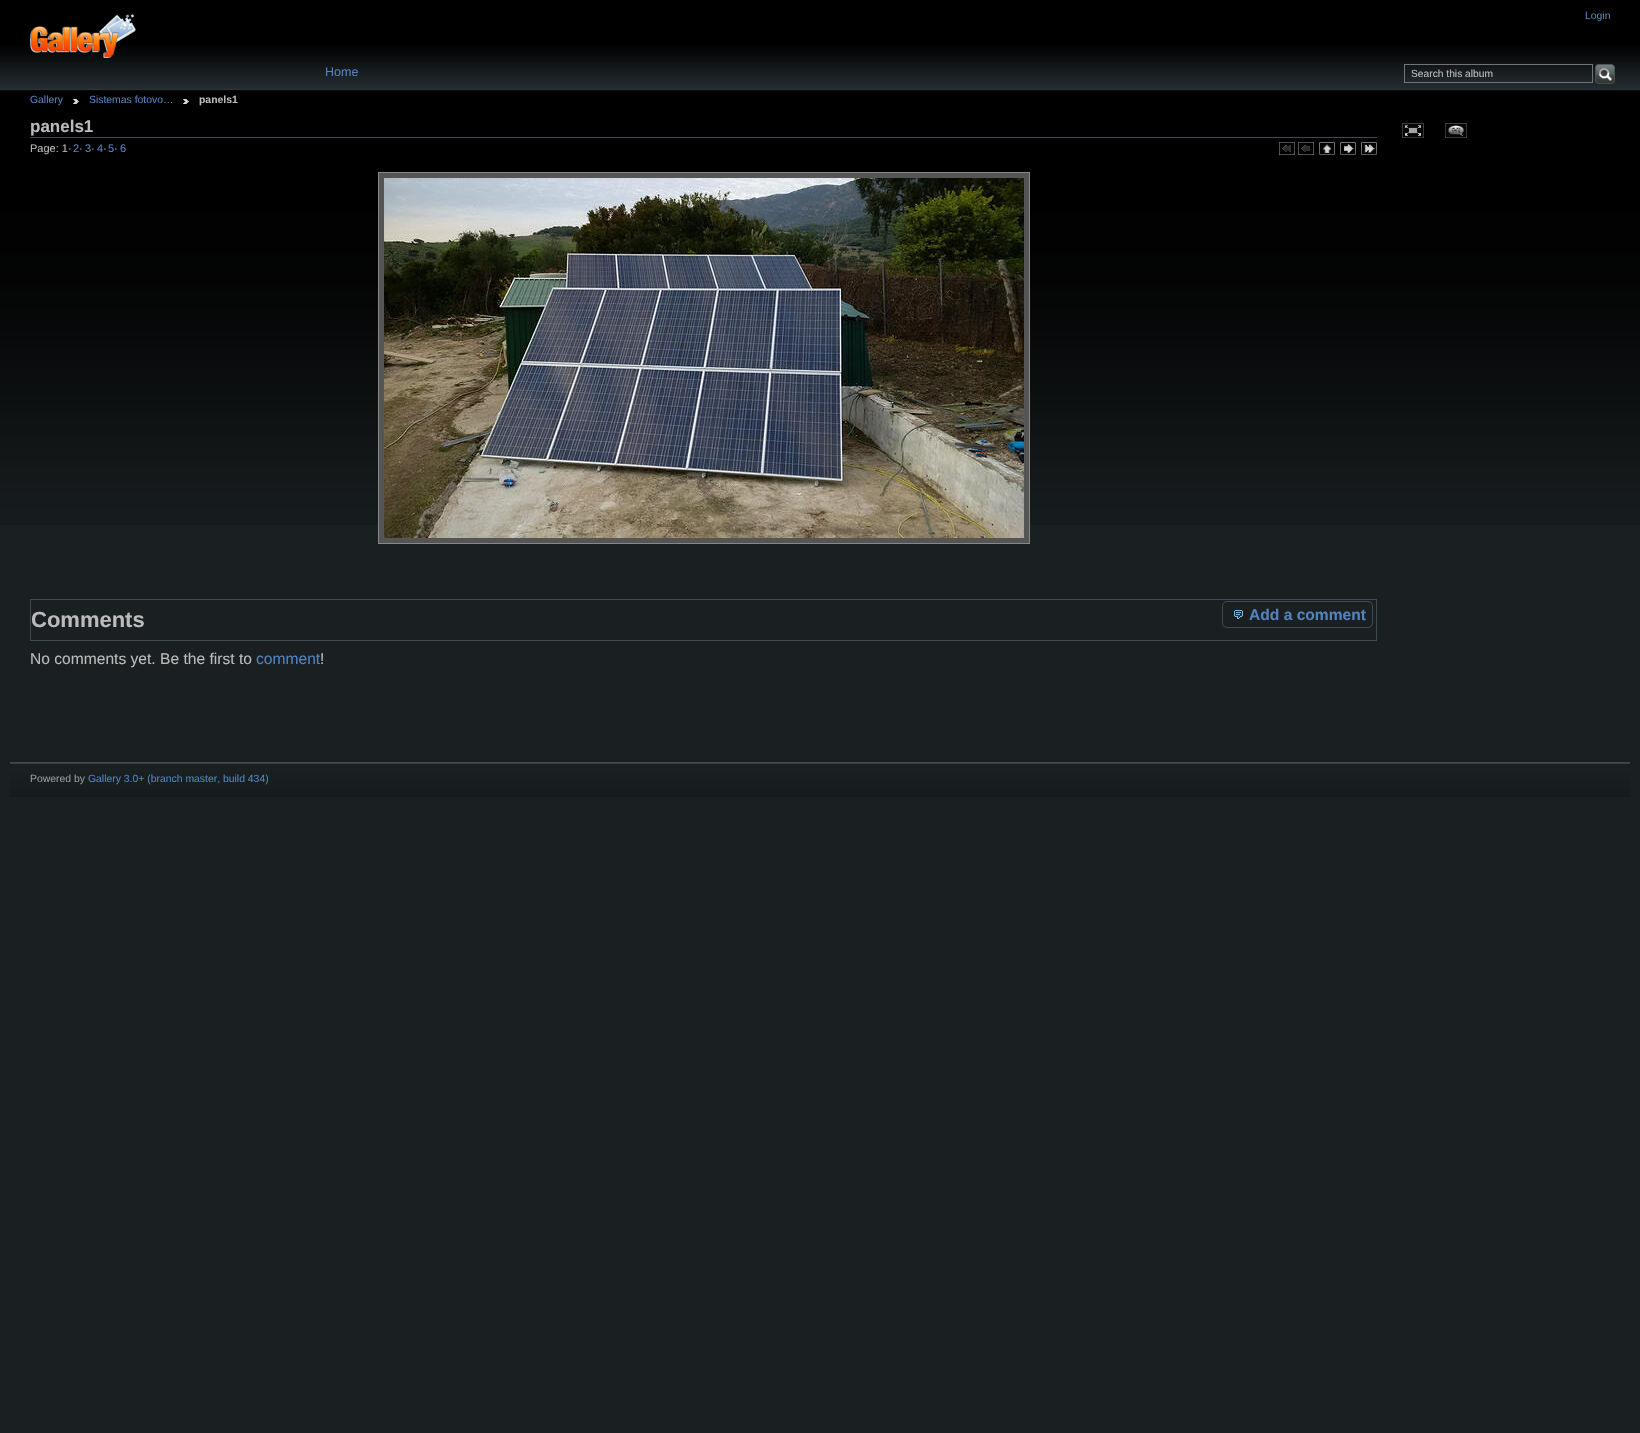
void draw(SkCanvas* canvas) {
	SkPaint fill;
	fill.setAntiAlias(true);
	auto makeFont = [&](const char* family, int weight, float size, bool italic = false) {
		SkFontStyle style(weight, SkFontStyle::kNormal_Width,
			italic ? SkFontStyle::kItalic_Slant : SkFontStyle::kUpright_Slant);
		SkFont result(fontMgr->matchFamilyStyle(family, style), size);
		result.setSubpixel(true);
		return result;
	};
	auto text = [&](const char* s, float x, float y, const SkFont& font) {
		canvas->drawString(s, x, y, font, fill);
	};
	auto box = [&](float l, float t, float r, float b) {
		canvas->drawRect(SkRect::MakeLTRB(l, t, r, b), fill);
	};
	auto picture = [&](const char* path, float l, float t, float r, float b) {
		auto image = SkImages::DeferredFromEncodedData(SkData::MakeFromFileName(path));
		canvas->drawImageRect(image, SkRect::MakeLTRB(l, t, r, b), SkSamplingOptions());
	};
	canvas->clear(0xFF1A2022);
	picture("image0.png", 0, 0, 1640, 525);
	picture("image1.png", 30, 14, 136, 58);
	fill.setStyle(SkPaint::kStroke_Style);
	fill.setStrokeWidth(1);
	fill.setColor(0xFF737373);
	canvas->drawRect(SkRect::MakeLTRB(1404.5f, 64.5f, 1592.5f, 82.5f), fill);
	picture("image2.png", 1595, 64, 1615, 84);
	picture("image3.png", 73, 99, 79, 104);
	picture("image3.png", 183, 99, 189, 104);
	fill.setStyle(SkPaint::kFill_Style);
	fill.setColor(0xFF3C4D52);
	box(30, 137, 1377, 138);
	picture("image4.png", 1279, 142, 1295, 155);
	picture("image5.png", 1298, 142, 1314, 155);
	picture("image6.png", 1319, 142, 1335, 155);
	picture("image7.png", 1340, 142, 1356, 155);
	picture("image8.png", 1361, 142, 1377, 155);
	fill.setColor(0xFF555555);
	canvas->drawRect(SkRect::MakeLTRB(378.5f, 172.5f, 1029.5f, 543.5f), fill);
	fill.setStyle(SkPaint::kStroke_Style);
	fill.setColor(0xFF888888);
	canvas->drawRect(SkRect::MakeLTRB(378.5f, 172.5f, 1029.5f, 543.5f), fill);
	picture("image9.png", 384, 178, 1024, 538);
	fill.setColor(0xFF3C4D52);
	canvas->drawRect(SkRect::MakeLTRB(30.5f, 599.5f, 1376.5f, 640.5f), fill);
	canvas->drawRoundRect(SkRect::MakeLTRB(1222.5f, 601.5f, 1372.5f, 627.5f), 4.5f, 4.5f, fill);
	picture("image10.png", 1234, 610, 1243, 619);
	picture("image11.png", 1402, 123, 1424, 138);
	picture("image12.png", 1445, 123, 1467, 138);
	picture("image13.png", 10, 763, 1630, 797);
	fill.setStyle(SkPaint::kFill_Style);
	box(10, 762, 1630, 763);
	auto font1 = makeFont("Liberation Sans", 400, 10.4f);
	fill.setColor(0xFF5382BF);
	text("Login", 1585, 19, font1);
	auto font2 = makeFont("Liberation Sans", 400, 12.5f);
	text("Home", 325, 76, font2);
	auto font3 = makeFont("Liberation Sans", 400, 10.25f);
	fill.setColor(0xFFBBBBBB);
	text("Search this album", 1411, 77, font3);
	fill.setColor(0xFF5382BF);
	text("Gallery", 30, 103, font1);
	text("Sistemas fotovo…", 89, 103, font1);
	auto font4 = makeFont("Liberation Sans", 700, 10.4f);
	fill.setColor(0xFFBBBBBB);
	text("panels1", 199, 103, font4);
	auto font5 = makeFont("Liberation Sans", 700, 17);
	text("panels1", 30, 132, font5);
	auto font6 = makeFont("Liberation Sans", 400, 11);
	text("Page: 1·", 30, 152, font6);
	fill.setColor(0xFF5382BF);
	text("2", 73, 152, font6);
	fill.setColor(0xFFBBBBBB);
	text("·", 79, 152, font6);
	fill.setColor(0xFF5382BF);
	text("3", 85, 152, font6);
	fill.setColor(0xFFBBBBBB);
	text("·", 91, 152, font6);
	fill.setColor(0xFF5382BF);
	text("4", 97, 152, font6);
	fill.setColor(0xFFBBBBBB);
	text("·", 103, 152, font6);
	fill.setColor(0xFF5382BF);
	text("5", 108, 152, font6);
	fill.setColor(0xFFBBBBBB);
	text("·", 114, 152, font6);
	fill.setColor(0xFF5382BF);
	text("6", 120, 152, font6);
	auto font7 = makeFont("Liberation Sans", 700, 15.6f);
	text("Add a comment", 1249, 620, font7);
	auto font8 = makeFont("Liberation Sans", 400, 15.6f);
	fill.setColor(0xFFBBBBBB);
	text("No comments yet. Be the first to", 30, 664, font8);
	fill.setColor(0xFF5382BF);
	text("comment", 256, 664, font8);
	fill.setColor(0xFFBBBBBB);
	text("!", 320, 664, font8);
	auto font9 = makeFont("Liberation Sans", 700, 22);
	text("Comments", 31, 627, font9);
	fill.setColor(0xFF999999);
	text("Powered by", 30, 782, font1);
	fill.setColor(0xFF5382BF);
	text("Gallery 3.0+ (branch master, build 434)", 88, 782, font1);
}
